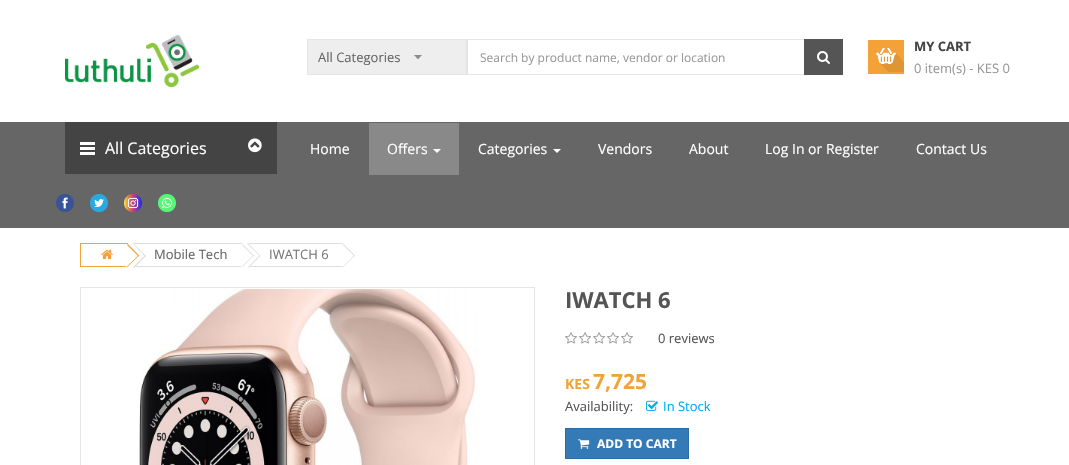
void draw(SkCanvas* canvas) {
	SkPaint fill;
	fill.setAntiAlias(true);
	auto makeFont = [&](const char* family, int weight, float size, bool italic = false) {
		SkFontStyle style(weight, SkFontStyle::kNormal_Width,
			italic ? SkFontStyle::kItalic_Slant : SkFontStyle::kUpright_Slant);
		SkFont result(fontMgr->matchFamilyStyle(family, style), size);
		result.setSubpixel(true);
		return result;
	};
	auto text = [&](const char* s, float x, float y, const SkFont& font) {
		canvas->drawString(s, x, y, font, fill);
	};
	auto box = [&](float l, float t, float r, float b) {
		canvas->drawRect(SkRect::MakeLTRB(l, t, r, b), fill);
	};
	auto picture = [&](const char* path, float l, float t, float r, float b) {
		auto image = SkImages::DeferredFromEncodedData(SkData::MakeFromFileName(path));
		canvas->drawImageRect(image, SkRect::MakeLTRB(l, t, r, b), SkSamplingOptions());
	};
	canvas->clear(0xFFFFFFFF);
	picture("image0.png", 65, 35, 199, 87);
	fill.setColor(0xFFEEEEEE);
	canvas->drawRect(SkRect::MakeLTRB(307.5f, 39.5f, 466.5f, 74.5f), fill);
	fill.setStyle(SkPaint::kStroke_Style);
	fill.setStrokeWidth(1);
	fill.setColor(0xFFE5E5E5);
	canvas->drawRect(SkRect::MakeLTRB(307.5f, 39.5f, 466.5f, 74.5f), fill);
	picture("image1.png", 414, 55, 422, 59);
	canvas->drawRect(SkRect::MakeLTRB(467.5f, 39.5f, 804.5f, 74.5f), fill);
	fill.setStyle(SkPaint::kFill_Style);
	fill.setColor(0xFF555555);
	box(804, 39, 843, 75);
	picture("image2.png", 817, 51, 830, 64);
	fill.setColor(0xFFF4A137);
	box(868, 40, 904, 74);
	picture("image3.png", 876, 48, 904, 72);
	fill.setColor(0xFF666666);
	box(0, 122, 1069, 228);
	fill.setColor(0xFF444444);
	box(65, 122, 277, 174);
	fill.setColor(0xFFFFFFFF);
	box(80, 142, 95, 145);
	box(80, 147, 95, 150);
	box(80, 152, 95, 155);
	picture("image4.png", 248, 138, 262, 153);
	fill.setColor(0xFF898989);
	box(369, 123, 459, 175);
	fill.setColor(0xFFFFFFFF);
	canvas->drawPath(SkPathBuilder().moveTo(433, 149).lineTo(441, 149).lineTo(437, 153).close().detach(), fill);
	canvas->drawPath(SkPathBuilder().moveTo(553, 149).lineTo(561, 149).lineTo(557, 153).close().detach(), fill);
	picture("image5.png", 56, 194, 74, 212);
	picture("image6.png", 90, 194, 108, 212);
	picture("image7.png", 124, 194, 142, 212);
	picture("image8.png", 158, 194, 176, 212);
	fill.setColor(0xFFF4A137);
	box(80, 243, 128, 244);
	box(80, 266, 128, 267);
	box(80, 243, 81, 267);
	picture("image9.png", 101, 249, 113, 259);
	fill.setColor(0xFFDDDDDD);
	box(134, 266, 242, 267);
	box(134, 243, 242, 244);
	fill.setColor(0xFFFFFFFF);
	canvas->drawPath(SkPathBuilder().moveTo(146, 256).lineTo(134, 268).lineTo(121, 255).lineTo(133, 243).close().detach(), fill);
	fill.setColor(0xFFE1E1E1);
	canvas->drawPath(SkPathBuilder().moveTo(146, 256).lineTo(134, 268).lineTo(133, 267).lineTo(145, 255).close().detach(), fill);
	canvas->drawPath(SkPathBuilder().moveTo(146, 256).lineTo(145, 256.5f).lineTo(132.5f, 243.5f).lineTo(133, 243).close().detach(), fill);
	fill.setColor(0xFFFFFFFF);
	canvas->drawPath(SkPathBuilder().moveTo(128, 244).lineTo(139, 255.5f).lineTo(127, 267.5f).lineTo(116, 256.5f).close().detach(), fill);
	fill.setColor(0xFFF4A137);
	canvas->drawPath(SkPathBuilder().moveTo(128, 244).lineTo(139, 255.5f).lineTo(138.5f, 256.5f).lineTo(127, 245).close().detach(), fill);
	canvas->drawPath(SkPathBuilder().moveTo(138.5f, 255).lineTo(139, 255.5f).lineTo(127, 267.5f).lineTo(126.5f, 267).close().detach(), fill);
	fill.setColor(0xFFDDDDDD);
	box(249, 266, 343, 267);
	box(249, 243, 343, 244);
	fill.setColor(0xFFFFFFFF);
	canvas->drawPath(SkPathBuilder().moveTo(260.5f, 256).lineTo(248.5f, 268).lineTo(236, 255).lineTo(248, 243).close().detach(), fill);
	fill.setColor(0xFFE1E1E1);
	canvas->drawPath(SkPathBuilder().moveTo(260.5f, 256).lineTo(248.5f, 268).lineTo(248, 267).lineTo(260, 255).close().detach(), fill);
	canvas->drawPath(SkPathBuilder().moveTo(260.5f, 256).lineTo(260, 256.5f).lineTo(247, 243.5f).lineTo(248, 243).close().detach(), fill);
	fill.setColor(0xFFFFFFFF);
	canvas->drawPath(SkPathBuilder().moveTo(242.5f, 244).lineTo(254, 255.5f).lineTo(242, 267.5f).lineTo(230.5f, 256.5f).close().detach(), fill);
	fill.setColor(0xFFE1E1E1);
	canvas->drawPath(SkPathBuilder().moveTo(242.5f, 244).lineTo(254, 255.5f).lineTo(253.5f, 256.5f).lineTo(242, 245).close().detach(), fill);
	canvas->drawPath(SkPathBuilder().moveTo(253.5f, 255).lineTo(254, 255.5f).lineTo(242, 267.5f).lineTo(241.5f, 267).close().detach(), fill);
	fill.setColor(0xFFFFFFFF);
	canvas->drawPath(SkPathBuilder().moveTo(343.5f, 244).lineTo(355, 255.5f).lineTo(343, 267.5f).lineTo(331.5f, 256.5f).close().detach(), fill);
	fill.setColor(0xFFE1E1E1);
	canvas->drawPath(SkPathBuilder().moveTo(343.5f, 244).lineTo(355, 255.5f).lineTo(354.5f, 256.5f).lineTo(343, 245).close().detach(), fill);
	canvas->drawPath(SkPathBuilder().moveTo(354.5f, 255).lineTo(355, 255.5f).lineTo(343, 267.5f).lineTo(342.5f, 267).close().detach(), fill);
	fill.setStyle(SkPaint::kStroke_Style);
	fill.setColor(0xFFE6E6E6);
	canvas->drawRect(SkRect::MakeLTRB(80.5f, 287.5f, 534.5f, 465.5f), fill);
	picture("image10.png", 139, 289, 478, 465);
	picture("image11.png", 565, 332, 577, 344);
	picture("image11.png", 579, 332, 591, 344);
	picture("image11.png", 593, 332, 605, 344);
	picture("image11.png", 607, 332, 619, 344);
	picture("image11.png", 621, 332, 633, 344);
	picture("image12.png", 646, 400, 658, 411);
	fill.setStyle(SkPaint::kFill_Style);
	fill.setColor(0xFF337AB7);
	canvas->drawRect(SkRect::MakeLTRB(565.5f, 428.5f, 688.5f, 458.5f), fill);
	fill.setStyle(SkPaint::kStroke_Style);
	fill.setColor(0xFF2E6DA4);
	canvas->drawRect(SkRect::MakeLTRB(565.5f, 428.5f, 688.5f, 458.5f), fill);
	picture("image13.png", 578, 439, 590, 449);
	auto font1 = makeFont("Open Sans", 400, 13);
	fill.setStyle(SkPaint::kFill_Style);
	fill.setColor(0xFF666666);
	text("All Categories", 318, 62, font1);
	auto font2 = makeFont("Open Sans", 400, 12);
	fill.setColor(0xFF999999);
	text("Search by product name, vendor or location", 480, 62, font2);
	auto font3 = makeFont("Open Sans", 700, 13);
	fill.setColor(0xFF444444);
	text("MY CART", 914, 51, font3);
	fill.setColor(0xFF999999);
	text("0 item(s) - KES 0", 914, 73, font1);
	auto font4 = makeFont("Open Sans", 400, 16);
	fill.setColor(0xFFFFFFFF);
	text("All Categories", 105, 154, font4);
	auto font5 = makeFont("Open Sans", 400, 14);
	text("Home", 310, 154, font5);
	text("Offers", 387, 154, font5);
	text("Categories", 478, 154, font5);
	text("Vendors", 598, 154, font5);
	text("About", 689, 154, font5);
	text("Log In or Register", 765, 154, font5);
	text("Contact Us", 916, 154, font5);
	fill.setColor(0xFF666666);
	text("Mobile Tech", 154, 259, font1);
	fill.setColor(0xFF777777);
	text("IWATCH 6", 269, 259, font1);
	auto font6 = makeFont("Open Sans", 700, 22);
	fill.setColor(0xFF555555);
	text("IWATCH 6", 565, 308, font6);
	text("0 reviews", 658, 343, font1);
	auto font7 = makeFont("Open Sans", 700, 14);
	fill.setColor(0xFFF2A336);
	text("KES", 565, 389, font7);
	auto font8 = makeFont("Open Sans", 700, 21);
	text("7,725", 593, 389, font8);
	fill.setColor(0xFF555555);
	text("Availability:", 565, 411, font1);
	fill.setColor(0xFF00ABF0);
	text("In Stock", 663, 411, font1);
	auto font9 = makeFont("Open Sans", 700, 12);
	fill.setColor(0xFFFFFFFF);
	text("ADD TO CART", 597, 448, font9);
}
